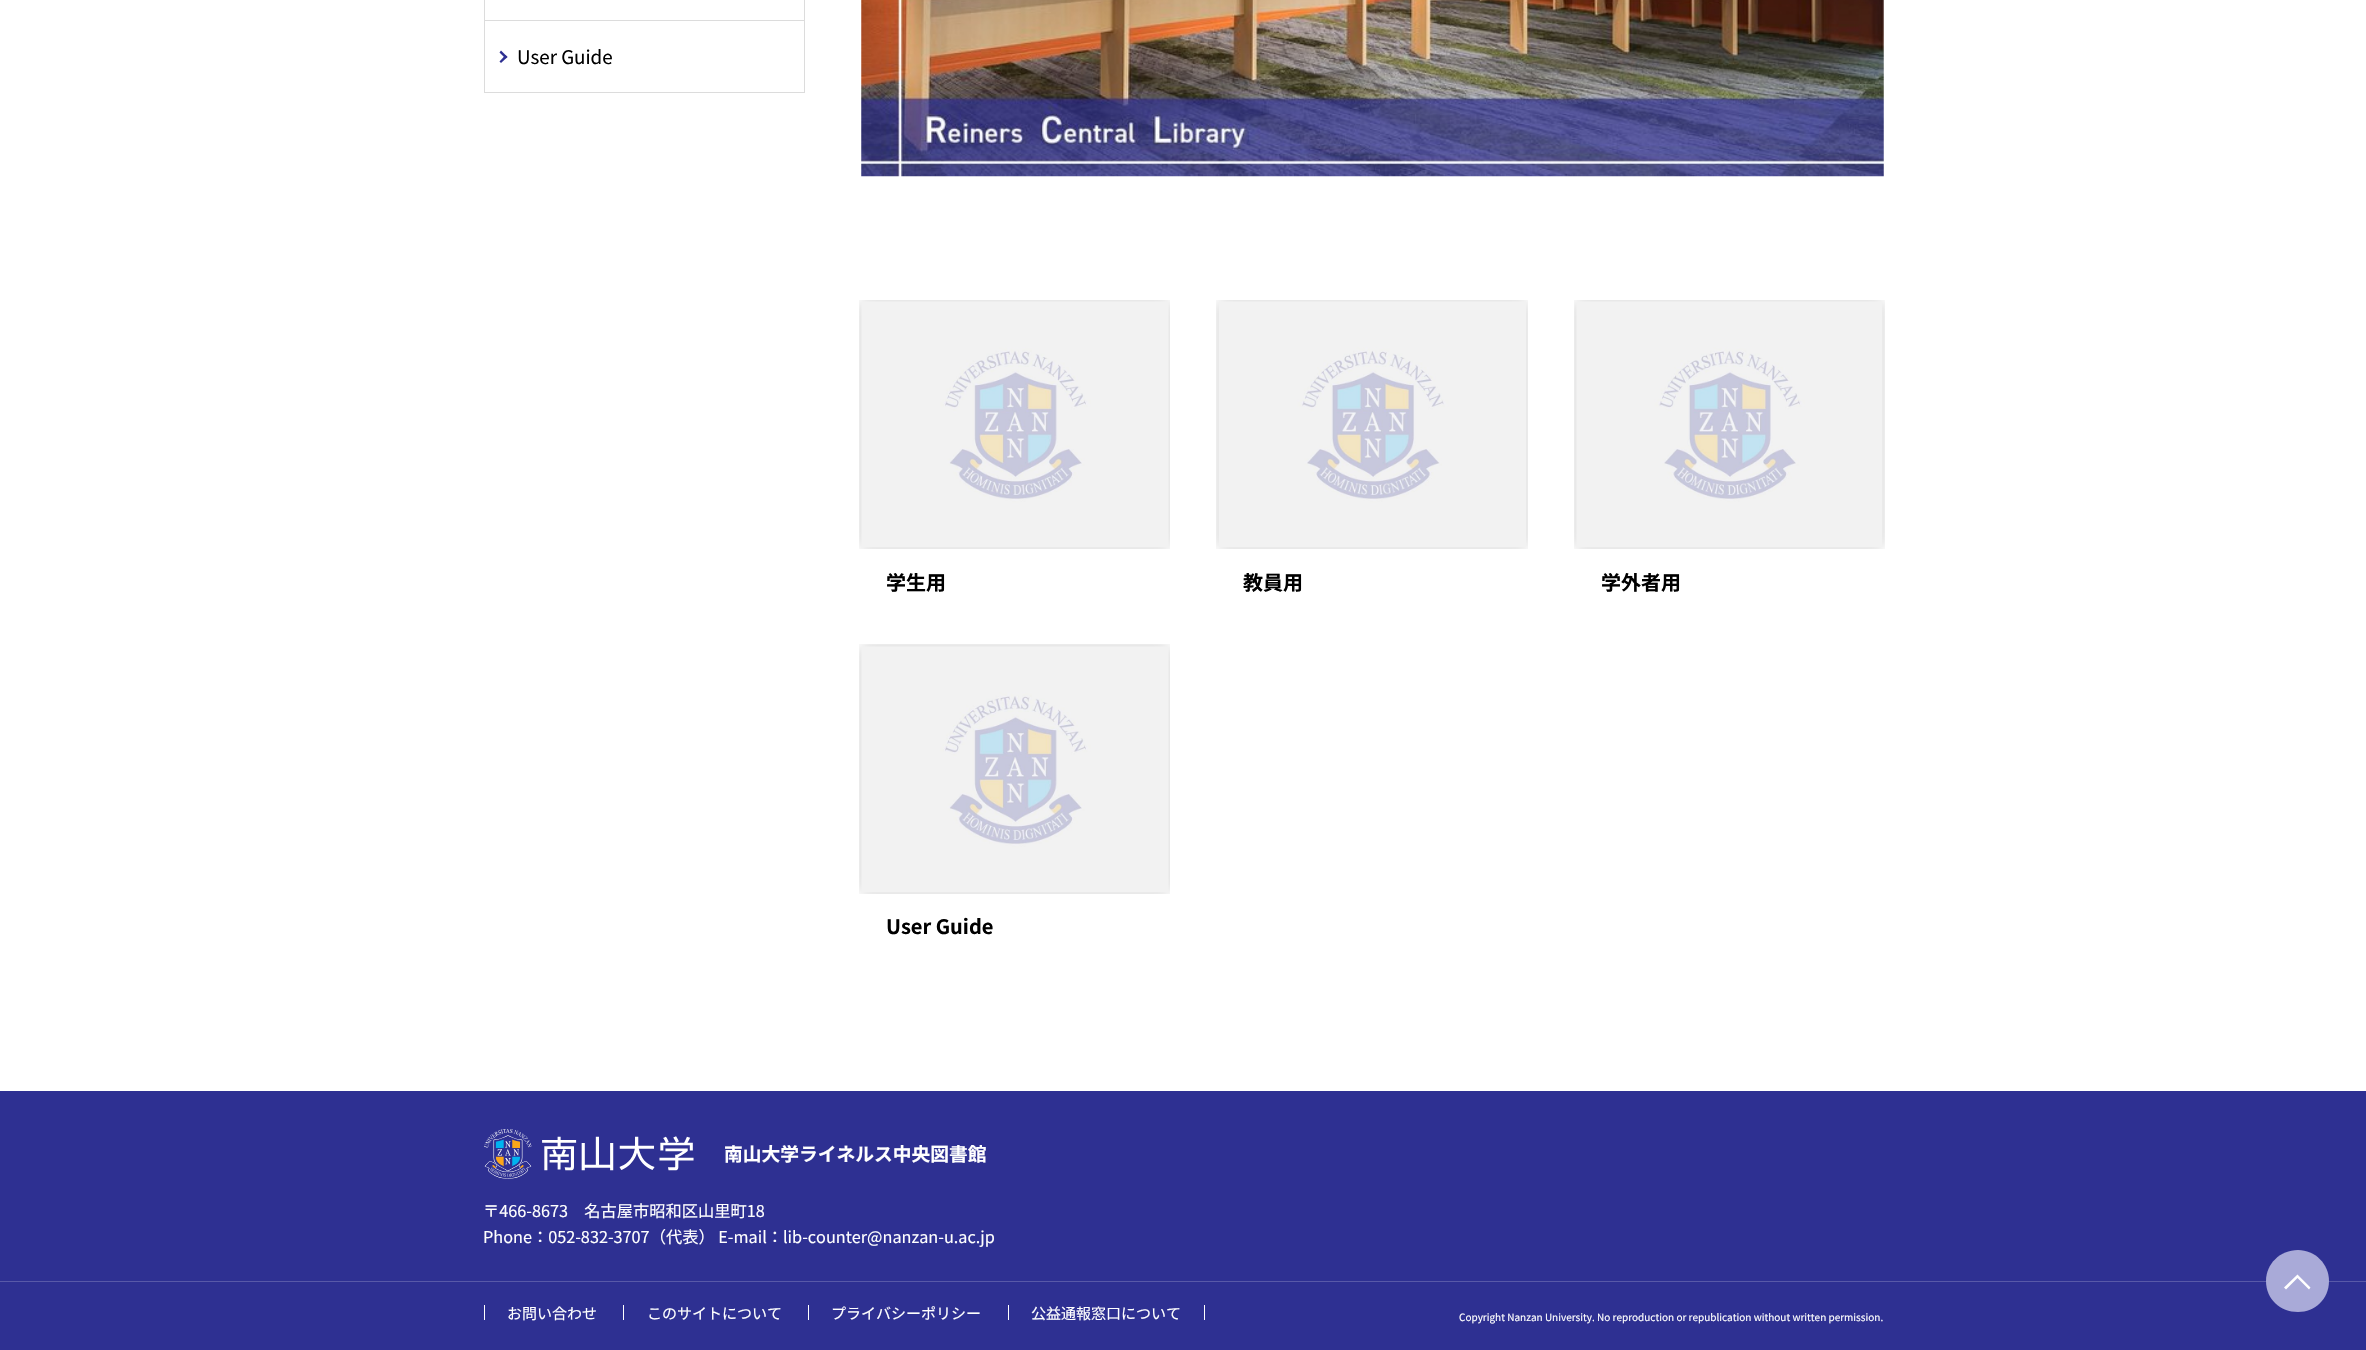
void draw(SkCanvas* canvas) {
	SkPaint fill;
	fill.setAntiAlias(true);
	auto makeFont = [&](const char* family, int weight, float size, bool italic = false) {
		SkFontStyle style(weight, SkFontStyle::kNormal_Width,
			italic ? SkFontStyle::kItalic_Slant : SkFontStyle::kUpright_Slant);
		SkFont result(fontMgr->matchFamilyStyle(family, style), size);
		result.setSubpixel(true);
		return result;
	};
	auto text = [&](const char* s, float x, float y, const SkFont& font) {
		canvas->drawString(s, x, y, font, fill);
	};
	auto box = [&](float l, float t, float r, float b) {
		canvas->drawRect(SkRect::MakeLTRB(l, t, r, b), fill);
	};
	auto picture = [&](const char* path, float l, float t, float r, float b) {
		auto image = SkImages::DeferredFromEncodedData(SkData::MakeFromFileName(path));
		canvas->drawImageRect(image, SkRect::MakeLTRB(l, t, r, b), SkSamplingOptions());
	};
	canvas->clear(0xFFFFFFFF);
	fill.setStyle(SkPaint::kStroke_Style);
	fill.setStrokeWidth(1);
	fill.setColor(0xFFDCDCDC);
	canvas->drawRect(SkRect::MakeLTRB(484.5f, -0.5f, 804.5f, 92.5f), fill);
	fill.setStyle(SkPaint::kFill_Style);
	box(485, 20, 804, 21);
	fill.setColor(0xFF2E3092);
	canvas->drawPath(SkPathBuilder().moveTo(501, 50.5f).lineTo(507.5f, 57).lineTo(505.5f, 58.5f).lineTo(499.5f, 52.5f).close().detach(), fill);
	canvas->drawPath(SkPathBuilder().moveTo(505.5f, 55).lineTo(507.5f, 57).lineTo(501, 63).lineTo(499.5f, 61.5f).close().detach(), fill);
	picture("image0.png", 861, 0, 1884, 177);
	picture("image1.png", 859, 300, 1170, 549);
	picture("image2.png", 1216, 300, 1528, 549);
	picture("image3.png", 1574, 300, 1885, 549);
	picture("image4.png", 859, 644, 1170, 894);
	box(0, 1091, 2366, 1350);
	fill.setColor(0xFF5859A8);
	box(0, 1281, 2366, 1282);
	picture("image5.png", 484, 1129, 694, 1179);
	fill.setColor(0xFFFFFFFF);
	box(484, 1305, 485, 1320);
	box(623, 1305, 624, 1320);
	box(808, 1305, 809, 1320);
	box(1204, 1305, 1205, 1320);
	box(1008, 1305, 1009, 1320);
	fill.setColor(0xFFA9AAD8);
	canvas->drawPath(SkPathBuilder(SkPathFillType::kEvenOdd).moveTo(2298, 1250).cubicTo(2315, 1250, 2329, 1264, 2329, 1281).cubicTo(2329, 1299, 2315, 1312, 2298, 1312).cubicTo(2280, 1312, 2266, 1299, 2266, 1281).cubicTo(2266, 1264, 2280, 1250, 2298, 1250).close().detach(), fill);
	fill.setColor(0xFFFFFFFF);
	canvas->drawPath(SkPathBuilder().moveTo(2310.5f, 1287.5f).lineTo(2297.5f, 1274.5f).lineTo(2284, 1287.5f).lineTo(2286, 1289.5f).lineTo(2297.5f, 1278).lineTo(2309, 1289.5f).close().detach(), fill);
	auto font1 = makeFont("Noto Sans JP", 400, 18.75f);
	fill.setColor(0xFF000000);
	text("User Guide", 517, 64, font1);
	auto font2 = makeFont("Noto Sans JP", 700, 20);
	text("学生用", 886, 590, font2);
	text("教員用", 1243, 590, font2);
	text("学外者用", 1601, 590, font2);
	text("User Guide", 886, 934, font2);
	auto font3 = makeFont("Noto Sans JP", 700, 18.75f);
	fill.setColor(0xFFFFFFFF);
	text("南山大学ライネルス中央図書館", 724, 1161, font3);
	auto font4 = makeFont("Noto Sans JP", 400, 16.25f);
	text("〒466-8673　名古屋市昭和区山里町18", 483, 1217, font4);
	text("Phone：052-832-3707（代表） E-mail：lib-counter@nanzan-u.ac.jp", 483, 1243, font4);
	auto font5 = makeFont("Noto Sans JP", 400, 15);
	text("お問い合わせ", 507, 1319, font5);
	text("このサイトについて", 647, 1319, font5);
	text("プライバシーポリシー", 831, 1319, font5);
	text("公益通報窓口について", 1031, 1319, font5);
	auto font6 = makeFont("Noto Sans JP", 400, 10);
	text("Copyright Nanzan University. No reproduction or republication without written permission.", 1459, 1321, font6);
}
